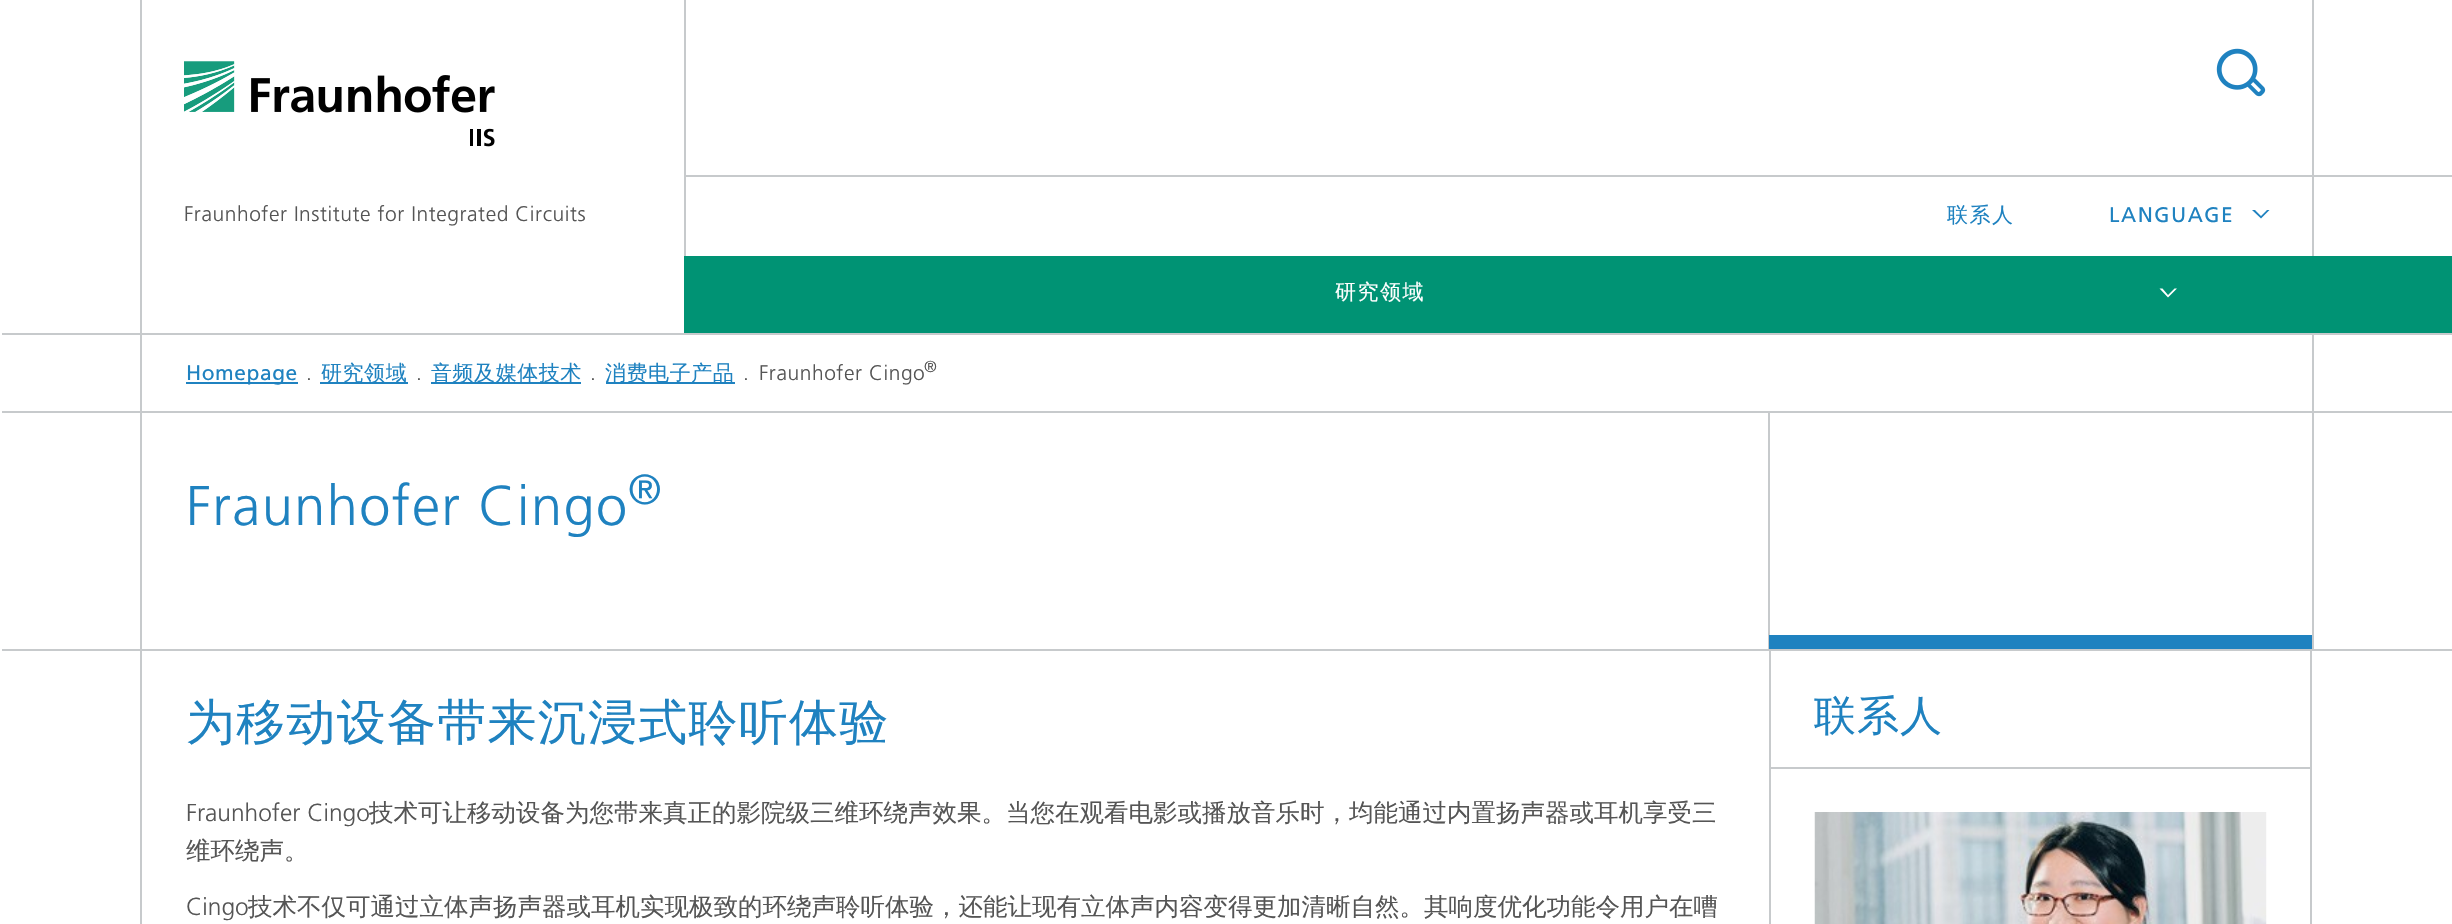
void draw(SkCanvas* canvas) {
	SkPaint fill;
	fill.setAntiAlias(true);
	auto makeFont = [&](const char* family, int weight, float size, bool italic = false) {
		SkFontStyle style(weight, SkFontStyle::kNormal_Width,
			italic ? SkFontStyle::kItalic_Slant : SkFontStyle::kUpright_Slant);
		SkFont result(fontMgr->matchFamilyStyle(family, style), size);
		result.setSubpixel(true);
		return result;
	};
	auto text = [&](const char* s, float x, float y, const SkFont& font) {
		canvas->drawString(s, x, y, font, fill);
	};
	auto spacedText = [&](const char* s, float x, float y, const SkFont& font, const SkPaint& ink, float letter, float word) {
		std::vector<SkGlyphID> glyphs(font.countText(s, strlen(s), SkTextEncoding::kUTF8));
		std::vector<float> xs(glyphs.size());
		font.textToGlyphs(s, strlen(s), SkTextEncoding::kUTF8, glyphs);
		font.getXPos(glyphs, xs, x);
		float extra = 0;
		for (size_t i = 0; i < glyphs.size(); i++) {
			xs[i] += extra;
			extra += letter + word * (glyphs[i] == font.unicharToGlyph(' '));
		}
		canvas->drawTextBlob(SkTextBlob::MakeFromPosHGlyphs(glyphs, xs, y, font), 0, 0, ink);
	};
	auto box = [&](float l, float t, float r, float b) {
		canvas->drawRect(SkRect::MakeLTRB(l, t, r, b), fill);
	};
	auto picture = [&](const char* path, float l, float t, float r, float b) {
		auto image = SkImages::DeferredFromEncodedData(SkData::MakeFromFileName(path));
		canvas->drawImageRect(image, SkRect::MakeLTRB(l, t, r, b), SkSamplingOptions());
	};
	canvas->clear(0xFFFFFFFF);
	picture("image0.png", 184, 61, 495, 147);
	picture("image1.png", 2216, 48, 2266, 97);
	fill.setColor(0xFFC7CACC);
	box(684, 175, 2452, 177);
	box(2312, 0, 2314, 256);
	box(684, 0, 686, 256);
	fill.setColor(0xFF1F82C0);
	canvas->drawPath(SkPathBuilder().moveTo(2267, 210).lineTo(2261, 216).lineTo(2255, 210).lineTo(2252, 210).lineTo(2261, 218.5f).lineTo(2269.5f, 210).close().detach(), fill);
	fill.setColor(0xFF009374);
	box(684, 256, 2452, 333);
	fill.setColor(0xFFFFFFFF);
	canvas->drawPath(SkPathBuilder().moveTo(2174.5f, 288.5f).lineTo(2168, 295).lineTo(2162.5f, 288.5f).lineTo(2159.5f, 288.5f).lineTo(2168, 297.5f).lineTo(2177, 288.5f).close().detach(), fill);
	fill.setColor(0xFFC7CACC);
	box(140, 0, 142, 924);
	box(2, 333, 142, 335);
	box(140, 333, 2452, 335);
	box(2, 411, 142, 413);
	box(140, 411, 2452, 413);
	box(2312, 333, 2314, 649);
	fill.setColor(0xFF1F82C0);
	box(186, 382, 298, 384);
	box(320, 382, 408, 384);
	box(431, 382, 581, 384);
	box(606, 382, 735, 384);
	fill.setColor(0xFFC7CACC);
	box(1768, 413, 1770, 649);
	fill.setColor(0xFF1F82C0);
	box(1769, 635, 2312, 649);
	fill.setColor(0xFFC7CACC);
	box(2, 649, 1771, 651);
	box(1771, 649, 2452, 651);
	box(1769, 649, 1771, 924);
	box(2310, 649, 2312, 924);
	box(1771, 767, 2310, 769);
	picture("image2.png", 1814, 812, 2267, 924);
	auto font1 = makeFont("Frutiger", 300, 21);
	fill.setColor(0xFF555555);
	spacedText("Fraunhofer Institute for Integrated Circuits", 184, 221, font1, fill, 0.55f, 0);
	auto font2 = makeFont("WenQuanYi Zen Hei", 500, 21);
	fill.setColor(0xFF1F82C0);
	spacedText("联系人", 1947, 222, font2, fill, 1.5f, 0);
	auto font3 = makeFont("Frutiger", 400, 21);
	spacedText("LANGUAGE", 2109, 222, font3, fill, 1.5f, 0);
	fill.setColor(0xFFFFFFFF);
	spacedText("研究领域", 1335, 299, font2, fill, 1.5f, 0);
	fill.setColor(0xFF1F82C0);
	spacedText("Homepage", 186, 380, font3, fill, 0.55f, 0);
	fill.setColor(0xFF555555);
	spacedText(".", 306, 380, font1, fill, 0.55f, 0);
	fill.setColor(0xFF1F82C0);
	spacedText("研究领域", 321, 380, font2, fill, 0.55f, 0);
	fill.setColor(0xFF555555);
	spacedText(".", 416, 380, font1, fill, 0.55f, 0);
	fill.setColor(0xFF1F82C0);
	spacedText("音频及媒体技术", 431, 380, font2, fill, 0.55f, 0);
	fill.setColor(0xFF555555);
	spacedText(".", 590, 380, font1, fill, 0.55f, 0);
	fill.setColor(0xFF1F82C0);
	spacedText("消费电子产品", 605, 380, font2, fill, 0.55f, 0);
	fill.setColor(0xFF555555);
	spacedText(".", 743, 380, font1, fill, 0.55f, 0);
	spacedText("Fraunhofer Cingo", 759, 380, font1, fill, 0.55f, 0);
	auto font4 = makeFont("Frutiger", 300, 16);
	spacedText("®", 924, 372, font4, fill, 0.55f, 0);
	auto font5 = makeFont("Frutiger", 300, 56);
	fill.setColor(0xFF1F82C0);
	spacedText("Fraunhofer Cingo", 186, 525, font5, fill, 1.4f, 0);
	auto font6 = makeFont("Frutiger", 300, 42);
	spacedText("®", 628, 504, font6, fill, 1.4f, 0);
	auto font7 = makeFont("WenQuanYi Zen Hei", 500, 49);
	spacedText("为移动设备带来沉浸式聆听体验", 186, 739, font7, fill, 1.25f, 0);
	auto font8 = makeFont("Frutiger", 300, 24.5f);
	fill.setColor(0xFF555555);
	text("Fraunhofer Cingo", 186, 821, font8);
	auto font9 = makeFont("WenQuanYi Zen Hei", 500, 24.5f);
	text("技术可让移动设备为您带来真正的影院级三维环绕声效果。当您在观看电影或播放音乐时，均能通过内置扬声器或耳机享受三", 369, 821, font9);
	text("维环绕声。", 186, 859, font9);
	text("Cingo", 186, 915, font8);
	text("技术不仅可通过立体声扬声器或耳机实现极致的环绕声聆听体验，还能让现有立体声内容变得更加清晰自然。其响度优化功能令用户在嘈", 248, 915, font9);
	auto font10 = makeFont("WenQuanYi Zen Hei", 500, 42);
	fill.setColor(0xFF1F82C0);
	spacedText("联系人", 1814, 730, font10, fill, 1, 0);
}
